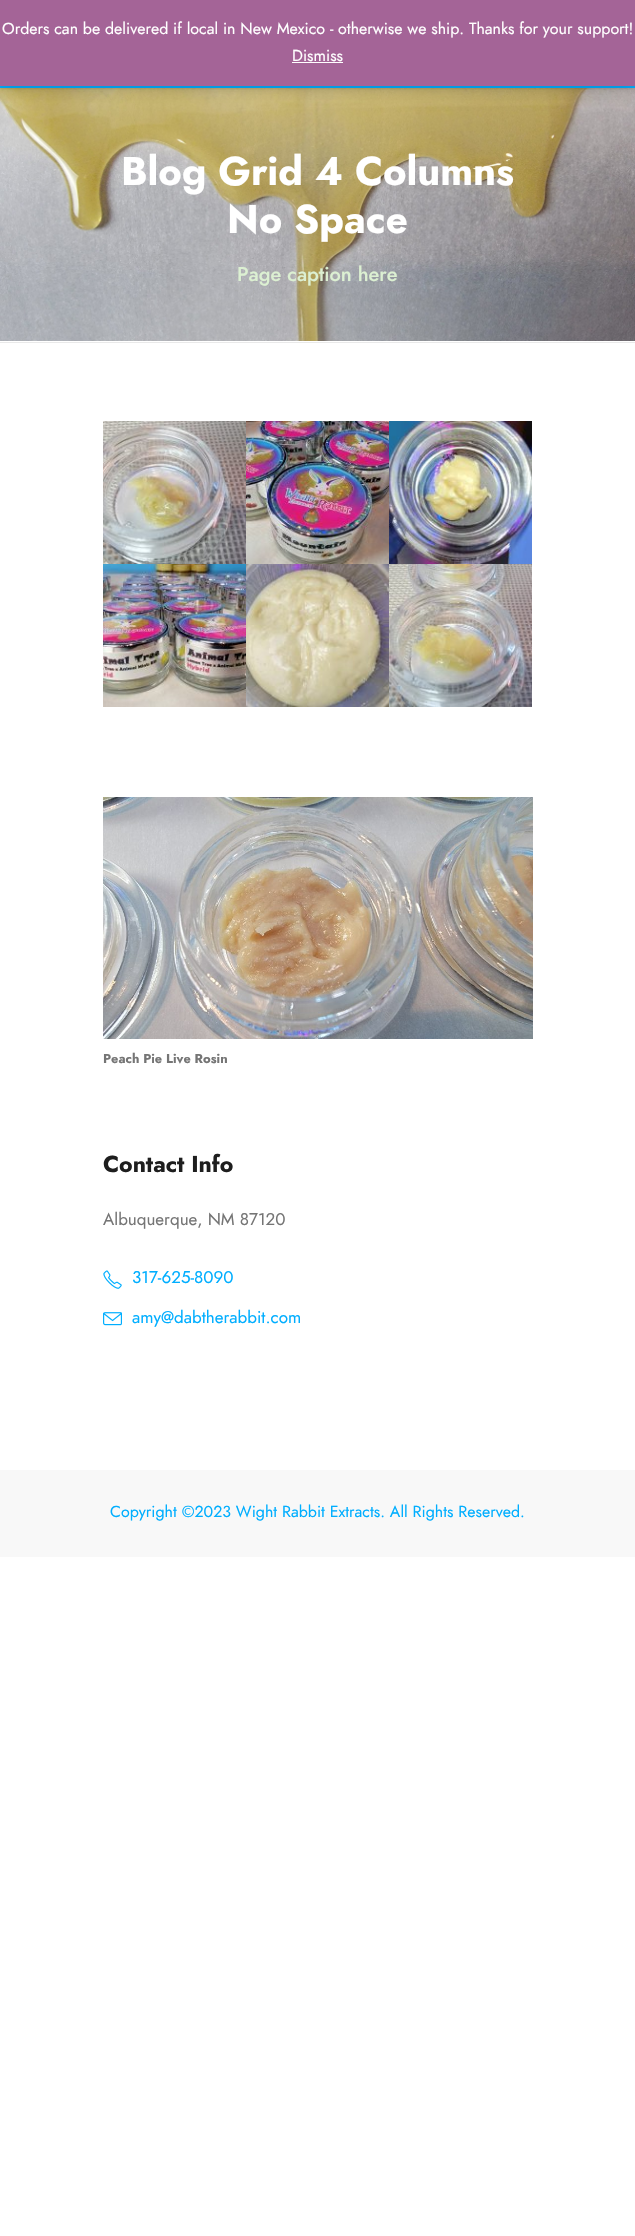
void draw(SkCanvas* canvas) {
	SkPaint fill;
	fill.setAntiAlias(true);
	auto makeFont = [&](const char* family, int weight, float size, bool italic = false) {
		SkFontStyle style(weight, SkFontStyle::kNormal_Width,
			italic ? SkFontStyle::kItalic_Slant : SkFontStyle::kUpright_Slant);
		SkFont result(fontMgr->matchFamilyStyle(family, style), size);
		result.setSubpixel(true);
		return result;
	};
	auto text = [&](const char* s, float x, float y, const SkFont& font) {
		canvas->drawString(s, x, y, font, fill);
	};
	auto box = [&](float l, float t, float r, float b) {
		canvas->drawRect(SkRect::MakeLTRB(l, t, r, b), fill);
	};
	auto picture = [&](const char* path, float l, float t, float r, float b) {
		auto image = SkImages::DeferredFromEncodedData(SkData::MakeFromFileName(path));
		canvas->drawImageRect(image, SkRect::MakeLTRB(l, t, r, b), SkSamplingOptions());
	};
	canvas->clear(0xFFFFFFFF);
	picture("image0.png", 0, 88, 635, 341);
	fill.setColor(0x1A000000);
	fill.setMaskFilter(SkMaskFilter::MakeBlur(kNormal_SkBlurStyle, 1));
	canvas->drawRect(SkRect::MakeLTRB(0, 1, 635, 89), fill);
	fill.setMaskFilter(nullptr);
	fill.setColor(0xFF00AEFF);
	box(0, 86, 635, 88);
	fill.setColor(0x33000000);
	fill.setMaskFilter(SkMaskFilter::MakeBlur(kNormal_SkBlurStyle, 8));
	canvas->drawRect(SkRect::MakeLTRB(0, 1, 635, 87), fill);
	fill.setMaskFilter(nullptr);
	fill.setColor(0xFFA46497);
	box(0, 0, 635, 86);
	fill.setColor(0xFFFFFFFF);
	box(292, 62, 343, 63);
	fill.setColor(0xFFE9E9E9);
	box(0, 342, 635, 343);
	picture("image1.png", 103, 421, 246, 564);
	picture("image2.png", 246, 421, 389, 564);
	picture("image3.png", 389, 421, 532, 564);
	picture("image4.png", 103, 564, 246, 707);
	picture("image5.png", 246, 564, 389, 707);
	picture("image6.png", 389, 564, 532, 707);
	picture("image7.png", 103, 797, 533, 1039);
	picture("image8.png", 103, 1270, 122, 1289);
	picture("image9.png", 103, 1312, 122, 1326);
	fill.setColor(0xFFF8F8F8);
	box(0, 1470, 635, 1557);
	auto font1 = makeFont("Jost", 400, 16);
	fill.setColor(0xFFFFFFFF);
	text("Orders can be delivered if local in New Mexico - otherwise we ship. Thanks for your support!", 2, 34, font1);
	text("Dismiss", 292, 61, font1);
	auto font2 = makeFont("Jost", 700, 40);
	text("Blog Grid 4 Columns", 121, 185, font2);
	text("No Space", 227, 233, font2);
	auto font3 = makeFont("Jost", 500, 20);
	fill.setColor(0xFFDCF0D2);
	text("Page caption here", 237, 281, font3);
	auto font4 = makeFont("Jost", 700, 13);
	fill.setColor(0xFF757575);
	text("Peach Pie Live Rosin", 103, 1063, font4);
	auto font5 = makeFont("Jost", 700, 23);
	fill.setColor(0xFF1E1E1E);
	text("Contact Info", 103, 1172, font5);
	auto font6 = makeFont("Jost", 400, 17);
	fill.setColor(0xFF757575);
	text("Albuquerque, NM 87120", 103, 1225, font6);
	fill.setColor(0xFF00AEFF);
	text("317-625-8090", 132, 1283, font6);
	text("amy@dabtherabbit.com", 132, 1323, font6);
	text("Copyright ©2023 Wight Rabbit Extracts. All Rights Reserved.", 110, 1517, font1);
}
